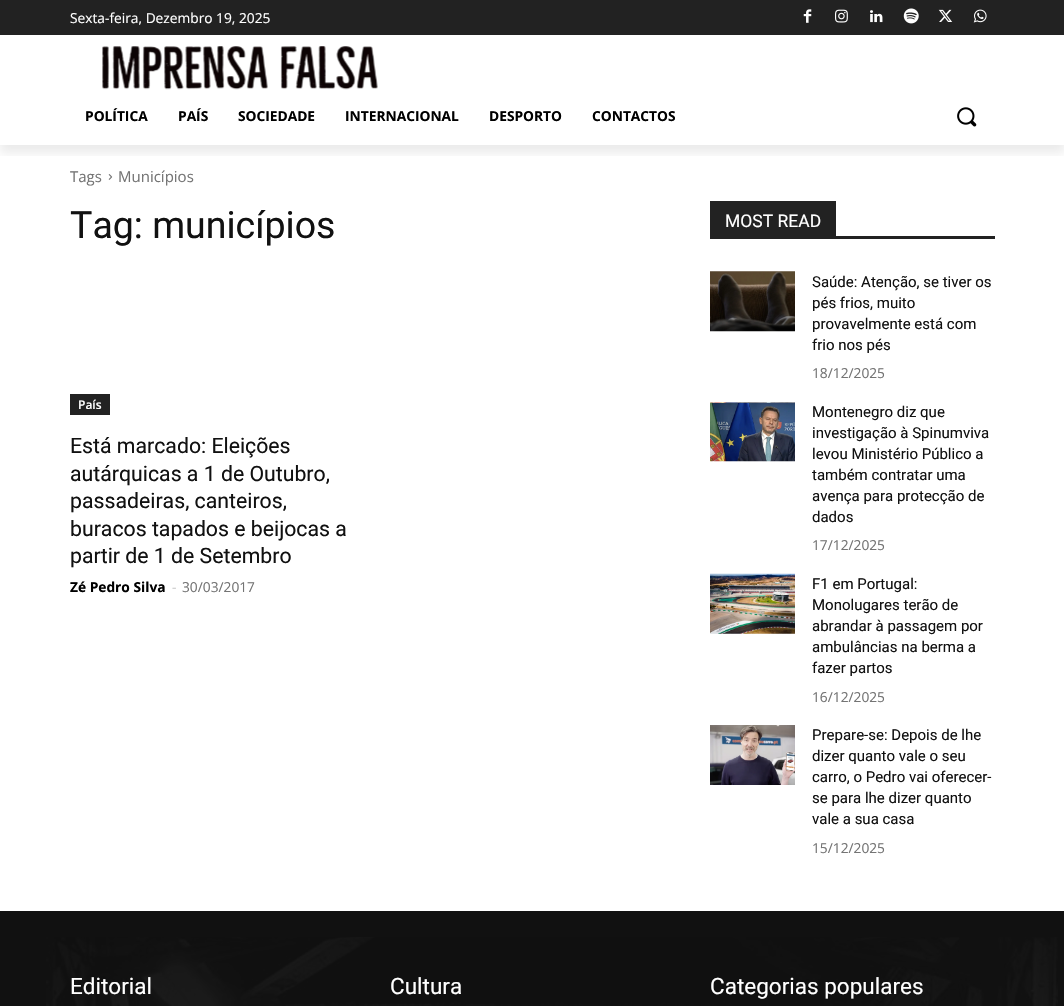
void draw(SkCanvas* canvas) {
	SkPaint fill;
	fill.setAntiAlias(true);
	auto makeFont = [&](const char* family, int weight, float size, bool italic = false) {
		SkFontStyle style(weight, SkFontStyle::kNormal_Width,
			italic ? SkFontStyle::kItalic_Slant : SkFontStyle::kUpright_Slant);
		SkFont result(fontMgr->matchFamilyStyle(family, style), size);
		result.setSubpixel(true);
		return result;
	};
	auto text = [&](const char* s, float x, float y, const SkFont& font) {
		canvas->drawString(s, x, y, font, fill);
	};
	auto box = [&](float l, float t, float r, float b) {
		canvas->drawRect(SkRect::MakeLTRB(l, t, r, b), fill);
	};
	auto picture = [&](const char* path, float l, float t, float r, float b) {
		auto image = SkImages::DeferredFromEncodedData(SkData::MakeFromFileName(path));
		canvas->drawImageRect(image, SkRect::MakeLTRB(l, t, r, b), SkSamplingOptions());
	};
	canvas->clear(0xFFFFFFFF);
	fill.setColor(0xFF222222);
	box(0, 0, 1064, 35);
	picture("image0.png", 803, 9, 812, 23);
	picture("image1.png", 835, 9, 848, 23);
	picture("image2.png", 870, 10, 883, 23);
	picture("image3.png", 903, 8, 919, 24);
	picture("image4.png", 938, 9, 953, 22);
	picture("image5.png", 973, 9, 987, 23);
	picture("image6.png", 102, 46, 378, 90);
	canvas->save();
	canvas->clipRect(SkRect::MakeLTRB(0, 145, 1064, 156));
	fill.setColor(0x14000000);
	fill.setMaskFilter(SkMaskFilter::MakeBlur(kNormal_SkBlurStyle, 5));
	canvas->drawRect(SkRect::MakeLTRB(0, 8, 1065, 153), fill);
	fill.setMaskFilter(nullptr);
	canvas->restore();
	picture("image7.png", 957, 107, 977, 127);
	picture("image8.png", 108, 174, 113, 180);
	fill.setColor(0xFF222222);
	box(70, 394, 110, 415);
	box(710, 236, 995, 239);
	box(710, 201, 836, 236);
	picture("image9.png", 710, 271, 795, 332);
	picture("image10.png", 710, 402, 795, 462);
	picture("image11.png", 710, 573, 795, 634);
	picture("image12.png", 710, 725, 795, 785);
	fill.setColor(0xFF111111);
	box(0, 911, 1064, 1006);
	picture("image13.png", 46, 937, 1058, 1006);
	auto font1 = makeFont("Open Sans", 400, 13.75f);
	fill.setColor(0xFFFFFFFF);
	text("Sexta-feira, Dezembro 19, 2025", 70, 23, font1);
	auto font2 = makeFont("Open Sans", 700, 13.75f);
	fill.setColor(0xFF000000);
	text("POLÍTICA", 85, 121, font2);
	text("PAÍS", 178, 121, font2);
	text("SOCIEDADE", 238, 121, font2);
	text("INTERNACIONAL", 345, 121, font2);
	text("DESPORTO", 489, 121, font2);
	text("CONTACTOS", 592, 121, font2);
	auto font3 = makeFont("Open Sans", 400, 15);
	fill.setColor(0xFF747474);
	text("Tags", 70, 182, font3);
	text("Municípios", 118, 182, font3);
	auto font4 = makeFont("Roboto", 400, 37.5f);
	fill.setColor(0xFF111111);
	text("Tag: municípios", 70, 238, font4);
	auto font5 = makeFont("Open Sans", 600, 12);
	fill.setColor(0xFFFFFFFF);
	text("País", 78, 409, font5);
	auto font6 = makeFont("Roboto", 400, 21.25f);
	fill.setColor(0xFF111111);
	text("Está marcado: Eleições", 70, 453, font6);
	text("autárquicas a 1 de Outubro,", 70, 481, font6);
	text("passadeiras, canteiros,", 70, 508, font6);
	text("buracos tapados e beijocas a", 70, 536, font6);
	text("partir de 1 de Setembro", 70, 563, font6);
	fill.setColor(0xFF000000);
	text("Zé Pedro Silva", 70, 592, font2);
	fill.setColor(0xFFCCCCCC);
	text("-", 172, 592, font1);
	fill.setColor(0xFF747474);
	text("30/03/2017", 182, 592, font1);
	auto font7 = makeFont("Roboto", 400, 17.5f);
	fill.setColor(0xFFFFFFFF);
	text("MOST READ", 725, 227, font7);
	auto font8 = makeFont("Roboto", 400, 15);
	fill.setColor(0xFF111111);
	text("Saúde: Atenção, se tiver os", 812, 287, font8);
	text("pés frios, muito", 812, 308, font8);
	text("provavelmente está com", 812, 329, font8);
	text("frio nos pés", 812, 350, font8);
	fill.setColor(0xFF747474);
	text("18/12/2025", 812, 378, font1);
	fill.setColor(0xFF111111);
	text("Montenegro diz que", 812, 417, font8);
	text("investigação à Spinumviva", 812, 438, font8);
	text("levou Ministério Público a", 812, 459, font8);
	text("também contratar uma", 812, 480, font8);
	text("avença para protecção de", 812, 501, font8);
	text("dados", 812, 522, font8);
	fill.setColor(0xFF747474);
	text("17/12/2025", 812, 550, font1);
	fill.setColor(0xFF111111);
	text("F1 em Portugal:", 812, 589, font8);
	text("Monolugares terão de", 812, 610, font8);
	text("abrandar à passagem por", 812, 631, font8);
	text("ambulâncias na berma a", 812, 652, font8);
	text("fazer partos", 812, 673, font8);
	fill.setColor(0xFF747474);
	text("16/12/2025", 812, 702, font1);
	fill.setColor(0xFF111111);
	text("Prepare-se: Depois de lhe", 812, 740, font8);
	text("dizer quanto vale o seu", 812, 761, font8);
	text("carro, o Pedro vai oferecer-", 812, 782, font8);
	text("se para lhe dizer quanto", 812, 803, font8);
	text("vale a sua casa", 812, 824, font8);
	fill.setColor(0xFF747474);
	text("15/12/2025", 812, 853, font1);
	auto font9 = makeFont("Roboto", 400, 22.5f);
	fill.setColor(0xFFFFFFFF);
	text("Editorial", 70, 994, font9);
	text("Cultura", 390, 994, font9);
	text("Categorias populares", 710, 994, font9);
}
